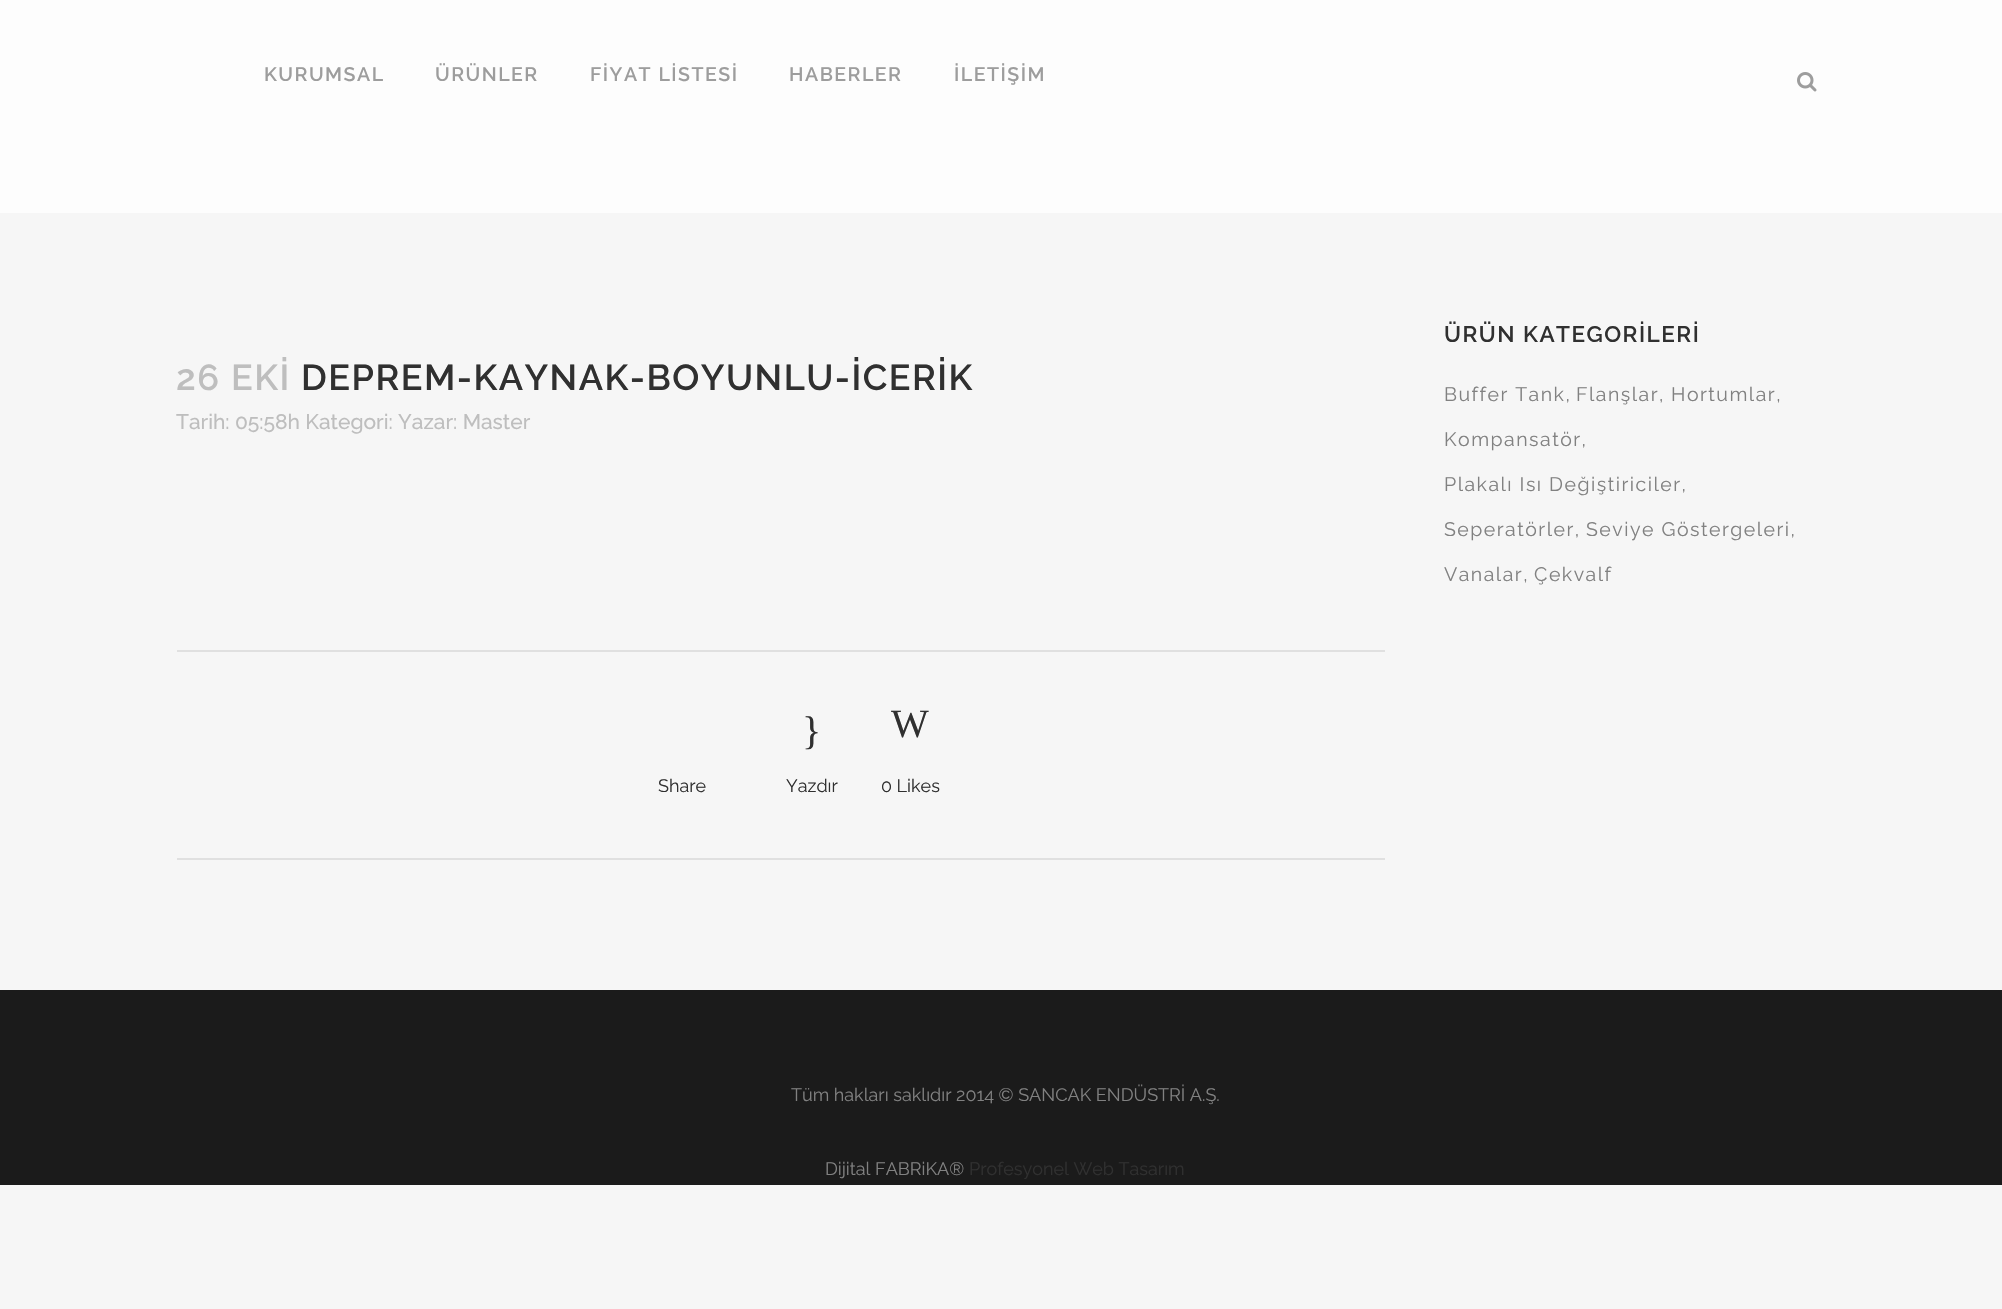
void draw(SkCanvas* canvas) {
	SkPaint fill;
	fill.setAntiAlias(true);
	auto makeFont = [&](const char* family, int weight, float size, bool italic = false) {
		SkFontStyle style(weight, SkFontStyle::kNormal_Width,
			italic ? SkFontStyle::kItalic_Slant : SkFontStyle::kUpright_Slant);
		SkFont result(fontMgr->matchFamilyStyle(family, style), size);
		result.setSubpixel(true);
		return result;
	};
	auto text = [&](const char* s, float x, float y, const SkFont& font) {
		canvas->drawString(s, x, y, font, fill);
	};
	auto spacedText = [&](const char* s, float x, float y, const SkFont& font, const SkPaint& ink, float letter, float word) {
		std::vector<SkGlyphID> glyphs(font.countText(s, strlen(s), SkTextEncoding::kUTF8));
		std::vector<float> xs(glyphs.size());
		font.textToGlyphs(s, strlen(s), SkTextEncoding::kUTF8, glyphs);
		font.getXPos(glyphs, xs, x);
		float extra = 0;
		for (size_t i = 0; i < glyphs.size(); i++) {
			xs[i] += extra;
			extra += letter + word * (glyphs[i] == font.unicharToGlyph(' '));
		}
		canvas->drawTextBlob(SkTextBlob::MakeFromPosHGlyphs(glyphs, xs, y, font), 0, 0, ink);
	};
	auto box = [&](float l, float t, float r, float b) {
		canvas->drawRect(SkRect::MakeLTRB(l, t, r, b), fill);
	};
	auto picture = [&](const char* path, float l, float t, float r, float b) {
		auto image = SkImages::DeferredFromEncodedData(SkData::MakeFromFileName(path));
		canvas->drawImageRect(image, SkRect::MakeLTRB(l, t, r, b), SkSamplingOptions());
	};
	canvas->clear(0xFFF6F6F6);
	fill.setColor(0xFFFDFDFD);
	box(0, 0, 2002, 213);
	picture("image0.png", 1797, 72, 1817, 92);
	fill.setColor(0xFFE0E0E0);
	box(177, 650, 1385, 652);
	box(177, 858, 1385, 860);
	fill.setColor(0xFF1B1B1B);
	box(0, 990, 2002, 1185);
	auto font1 = makeFont("Raleway", 600, 19.5f);
	fill.setColor(0xFF9D9D9D);
	spacedText("KURUMSAL", 264, 81, font1, fill, 1.5f, 0);
	spacedText("ÜRÜNLER", 435, 81, font1, fill, 1.5f, 0);
	spacedText("FİYAT LİSTESİ", 590, 81, font1, fill, 1.5f, 0);
	spacedText("HABERLER", 789, 81, font1, fill, 1.5f, 0);
	spacedText("İLETİŞİM", 954, 81, font1, fill, 1.5f, 0);
	auto font2 = makeFont("Raleway", 600, 36);
	fill.setColor(0xFFBEBEBE);
	spacedText("26 EKİ", 176, 390, font2, fill, 1.5f, 0);
	fill.setColor(0xFF303030);
	spacedText("DEPREM-KAYNAK-BOYUNLU-İCERİK", 301, 390, font2, fill, 1.5f, 0);
	auto font3 = makeFont("Raleway", 500, 21);
	fill.setColor(0xFFBEBEBE);
	text("Tarih: 05:58h Kategori: Yazar: Master", 176, 429, font3);
	auto font4 = makeFont("Raleway", 400, 18);
	fill.setColor(0xFF303030);
	text("Share", 658, 792, font4);
	auto font5 = makeFont("Liberation Serif", 400, 40);
	text("}", 802, 744, font5);
	text("Yazdır", 786, 792, font4);
	text("W", 891, 737, font5);
	text("0 Likes", 881, 792, font4);
	auto font6 = makeFont("Raleway", 600, 22.5f);
	spacedText("ÜRÜN KATEGORİLERİ", 1444, 342, font6, fill, 1.5f, 0);
	auto font7 = makeFont("Raleway", 400, 19.5f);
	fill.setColor(0xFF818181);
	spacedText("Buffer Tank,", 1444, 401, font7, fill, 1.5f, 0);
	spacedText("Flanşlar,", 1576, 401, font7, fill, 1.5f, 0);
	spacedText("Hortumlar,", 1671, 401, font7, fill, 1.5f, 0);
	spacedText("Kompansatör,", 1444, 446, font7, fill, 1.5f, 0);
	spacedText("Plakalı Isı Değiştiriciler,", 1444, 491, font7, fill, 1.5f, 0);
	spacedText("Seperatörler,", 1444, 536, font7, fill, 1.5f, 0);
	spacedText("Seviye Göstergeleri,", 1586, 536, font7, fill, 1.5f, 0);
	spacedText("Vanalar,", 1444, 581, font7, fill, 1.5f, 0);
	spacedText("Çekvalf", 1534, 581, font7, fill, 1.5f, 0);
	text("Tüm hakları saklıdır 2014 © SANCAK ENDÜSTRİ A.Ş.", 791, 1101, font4);
	text("Dijital FABRiKA®", 825, 1175, font4);
	fill.setColor(0xFF303030);
	text("Profesyonel Web Tasarım", 969, 1175, font4);
}
